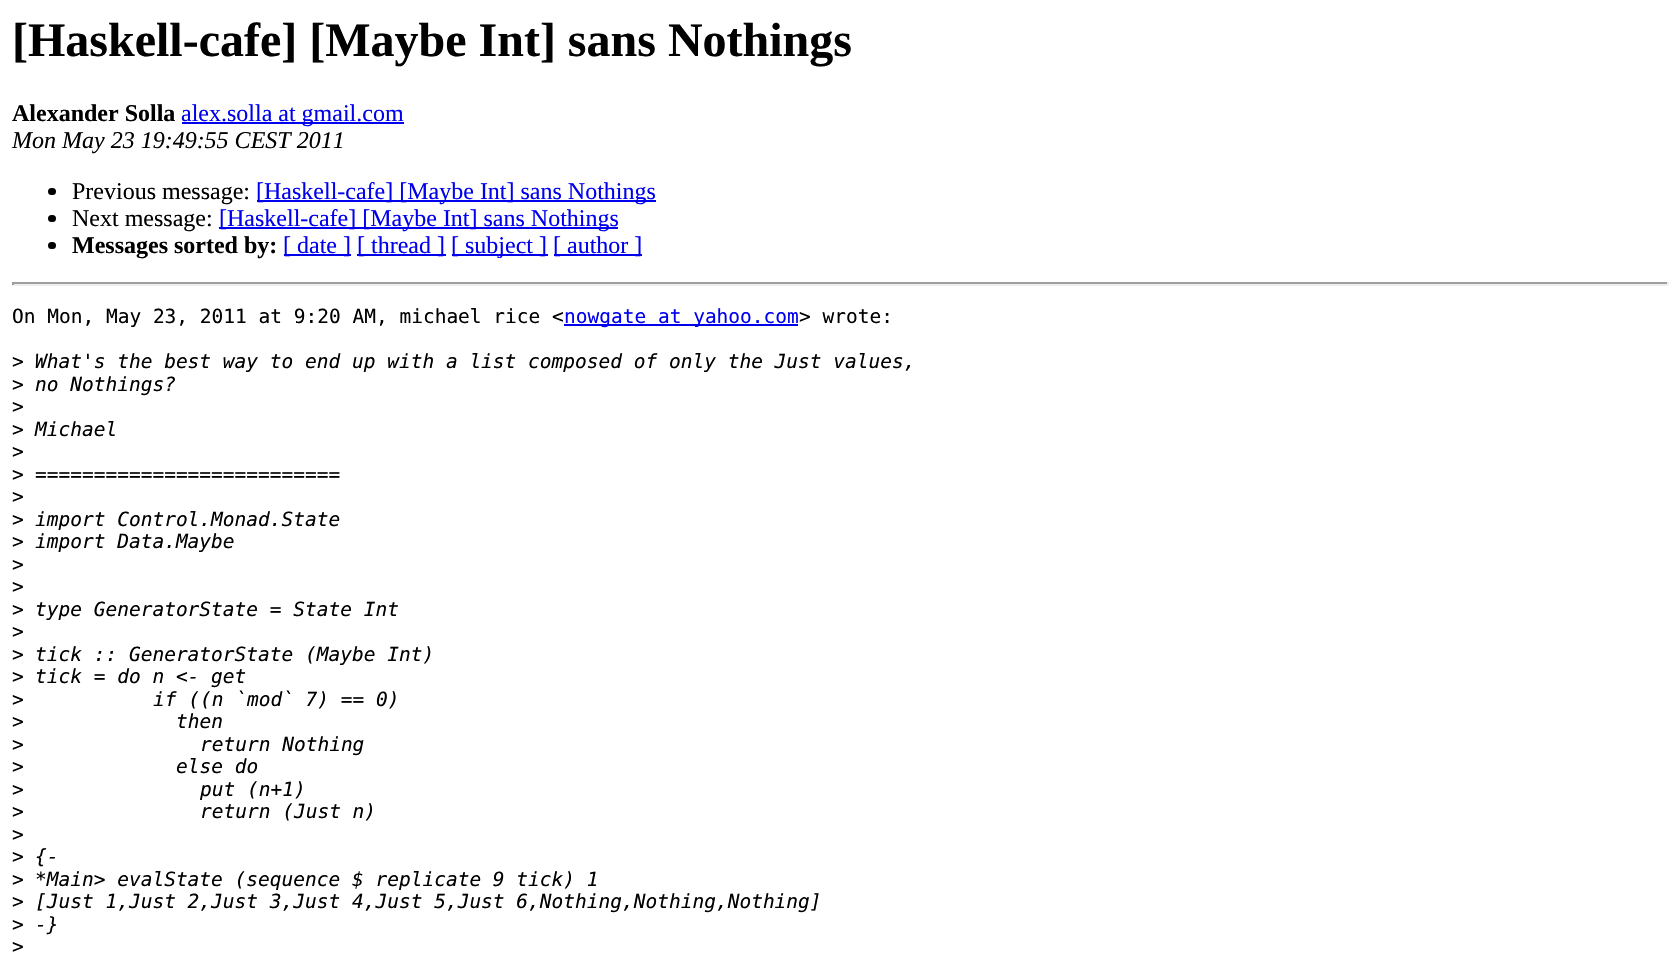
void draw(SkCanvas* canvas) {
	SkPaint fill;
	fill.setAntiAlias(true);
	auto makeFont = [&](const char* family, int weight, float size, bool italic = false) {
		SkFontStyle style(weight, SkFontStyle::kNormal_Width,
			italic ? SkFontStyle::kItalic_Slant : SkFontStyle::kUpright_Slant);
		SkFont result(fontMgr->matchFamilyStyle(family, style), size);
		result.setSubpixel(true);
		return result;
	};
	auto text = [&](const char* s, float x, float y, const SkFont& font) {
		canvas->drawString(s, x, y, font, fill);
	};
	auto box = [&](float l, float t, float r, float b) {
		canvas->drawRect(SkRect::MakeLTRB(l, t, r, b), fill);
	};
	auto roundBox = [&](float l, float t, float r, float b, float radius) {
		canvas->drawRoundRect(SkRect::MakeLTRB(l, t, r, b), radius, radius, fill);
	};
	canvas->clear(0xFFFFFFFF);
	fill.setColor(0xFF0000EE);
	box(182, 122, 404, 124);
	fill.setColor(0xFF000000);
	roundBox(48, 188, 56, 195, 3.5f);
	fill.setColor(0xFF0000EE);
	box(257, 200, 656, 202);
	fill.setColor(0xFF000000);
	roundBox(48, 215, 56, 222, 3.5f);
	fill.setColor(0xFF0000EE);
	box(219, 227, 618, 229);
	fill.setColor(0xFF000000);
	roundBox(48, 242, 56, 249, 3.5f);
	fill.setColor(0xFF0000EE);
	box(284, 254, 351, 256);
	box(357, 254, 446, 256);
	box(452, 254, 548, 256);
	box(554, 254, 642, 256);
	fill.setColor(0xFF9F9F9F);
	box(12, 282, 1668, 284);
	fill.setColor(0xFFEEEEEE);
	box(1667, 282, 1669, 285);
	box(12, 284, 1668, 286);
	fill.setColor(0xFF9F9F9F);
	box(12, 282, 14, 285);
	fill.setColor(0xFF0000EE);
	box(564, 324, 798, 326);
	auto font1 = makeFont("Liberation Serif", 700, 48);
	fill.setColor(0xFF000000);
	text("[Haskell-cafe] [Maybe Int] sans Nothings", 12, 56, font1);
	auto font2 = makeFont("Liberation Serif", 700, 24);
	text("Alexander Solla", 12, 121, font2);
	auto font3 = makeFont("Liberation Serif", 400, 24);
	fill.setColor(0xFF0000EE);
	text("alex.solla at gmail.com", 181, 121, font3);
	auto font4 = makeFont("Liberation Serif", 400, 24, true);
	fill.setColor(0xFF000000);
	text("Mon May 23 19:49:55 CEST 2011", 12, 148, font4);
	text("Previous message:", 72, 199, font3);
	fill.setColor(0xFF0000EE);
	text("[Haskell-cafe] [Maybe Int] sans Nothings", 256, 199, font3);
	fill.setColor(0xFF000000);
	text("Next message:", 72, 226, font3);
	fill.setColor(0xFF0000EE);
	text("[Haskell-cafe] [Maybe Int] sans Nothings", 219, 226, font3);
	fill.setColor(0xFF000000);
	text("Messages sorted by:", 72, 253, font2);
	fill.setColor(0xFF0000EE);
	text("[ date ]", 283, 253, font3);
	text("[ thread ]", 357, 253, font3);
	text("[ subject ]", 451, 253, font3);
	text("[ author ]", 553, 253, font3);
	auto font5 = makeFont("DejaVu Sans Mono", 400, 19.5f);
	fill.setColor(0xFF000000);
	text("On Mon, May 23, 2011 at 9:20 AM, michael rice <", 12, 323, font5);
	fill.setColor(0xFF0000EE);
	text("nowgate at yahoo.com", 564, 323, font5);
	fill.setColor(0xFF000000);
	text("> wrote:", 799, 323, font5);
	text(">", 12, 368, font5);
	auto font6 = makeFont("DejaVu Sans Mono", 400, 19.5f, true);
	text("What's the best way to end up with a list composed of only the Just values,", 35, 368, font6);
	text(">", 12, 391, font5);
	text("no Nothings?", 35, 391, font6);
	text(">", 12, 413, font5);
	text(">", 12, 436, font5);
	text("Michael", 35, 436, font6);
	text(">", 12, 458, font5);
	text(">", 12, 481, font5);
	text("==========================", 35, 481, font6);
	text(">", 12, 503, font5);
	text(">", 12, 526, font5);
	text("import Control.Monad.State", 35, 526, font6);
	text(">", 12, 548, font5);
	text("import Data.Maybe", 35, 548, font6);
	text(">", 12, 571, font5);
	text(">", 12, 593, font5);
	text(">", 12, 616, font5);
	text("type GeneratorState = State Int", 35, 616, font6);
	text(">", 12, 638, font5);
	text(">", 12, 661, font5);
	text("tick :: GeneratorState (Maybe Int)", 35, 661, font6);
	text(">", 12, 683, font5);
	text("tick = do n <- get", 35, 683, font6);
	text(">", 12, 706, font5);
	text("if ((n `mod` 7) == 0)", 153, 706, font6);
	text(">", 12, 728, font5);
	text("then", 176, 728, font6);
	text(">", 12, 751, font5);
	text("return Nothing", 200, 751, font6);
	text(">", 12, 773, font5);
	text("else do", 176, 773, font6);
	text(">", 12, 796, font5);
	text("put (n+1)", 200, 796, font6);
	text(">", 12, 818, font5);
	text("return (Just n)", 200, 818, font6);
	text(">", 12, 841, font5);
	text(">", 12, 863, font5);
	text("{-", 35, 863, font6);
	text(">", 12, 886, font5);
	text("*Main> evalState (sequence $ replicate 9 tick) 1", 35, 886, font6);
	text(">", 12, 908, font5);
	text("[Just 1,Just 2,Just 3,Just 4,Just 5,Just 6,Nothing,Nothing,Nothing]", 35, 908, font6);
	text(">", 12, 931, font5);
	text("-}", 35, 931, font6);
	text(">", 12, 953, font5);
}
